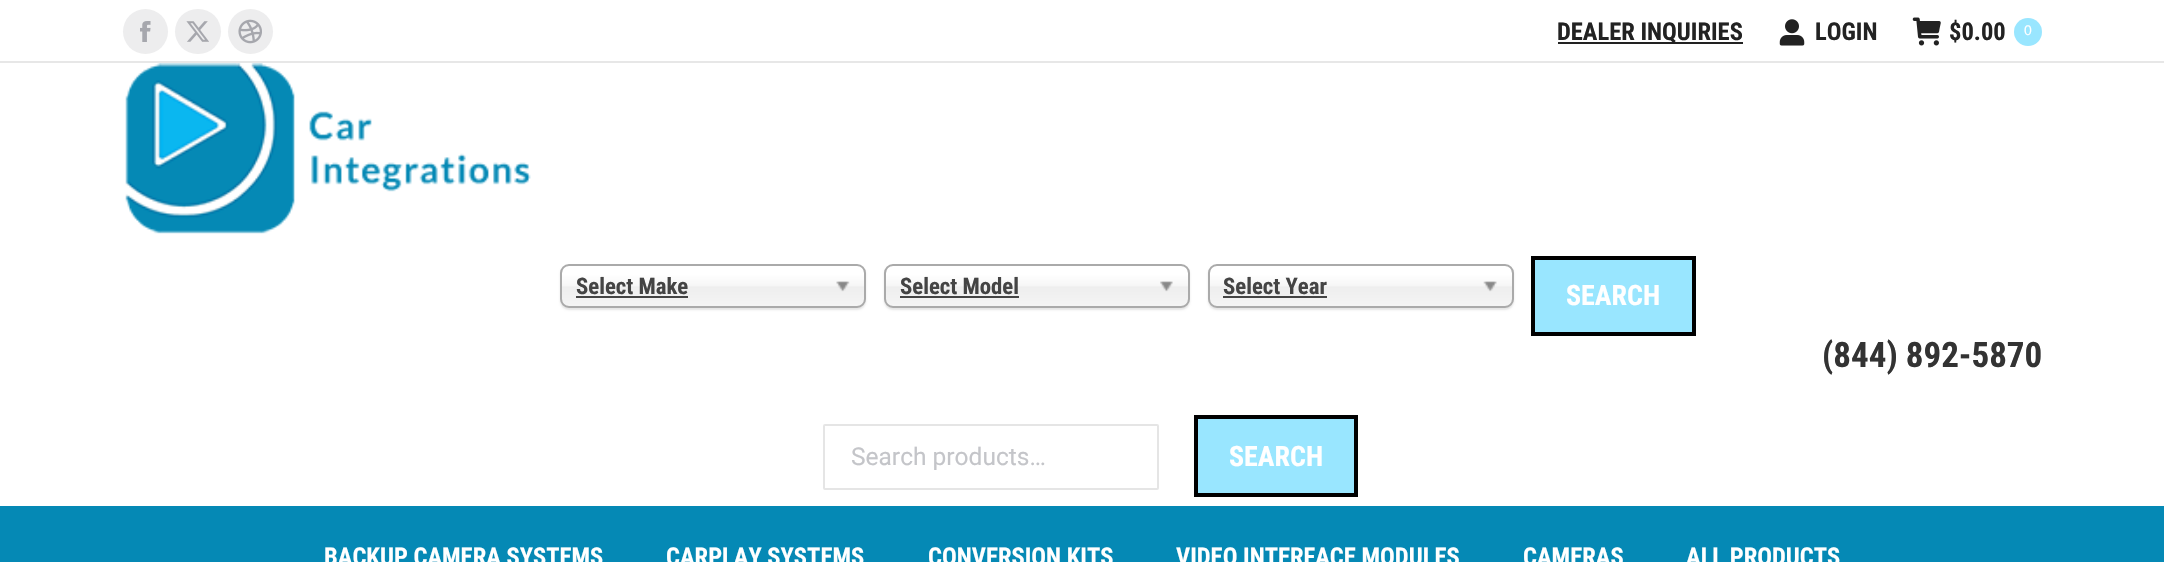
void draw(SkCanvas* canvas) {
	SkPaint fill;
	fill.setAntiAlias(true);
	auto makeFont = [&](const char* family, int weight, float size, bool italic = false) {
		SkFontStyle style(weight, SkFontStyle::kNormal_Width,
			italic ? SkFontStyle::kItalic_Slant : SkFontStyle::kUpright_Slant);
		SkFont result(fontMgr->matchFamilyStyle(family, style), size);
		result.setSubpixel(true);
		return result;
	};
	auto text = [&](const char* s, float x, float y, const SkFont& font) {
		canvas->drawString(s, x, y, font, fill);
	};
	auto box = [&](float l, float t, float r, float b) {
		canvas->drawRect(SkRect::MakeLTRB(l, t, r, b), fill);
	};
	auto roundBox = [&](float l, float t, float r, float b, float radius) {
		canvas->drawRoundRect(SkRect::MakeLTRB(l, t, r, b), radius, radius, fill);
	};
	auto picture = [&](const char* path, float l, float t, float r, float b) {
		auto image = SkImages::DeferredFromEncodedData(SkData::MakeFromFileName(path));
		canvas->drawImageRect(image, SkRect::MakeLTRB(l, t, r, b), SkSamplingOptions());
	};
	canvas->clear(0xFFFFFFFF);
	fill.setColor(0xFFEDEDEE);
	canvas->drawCircle(145.5f, 31.5f, 22.5f, fill);
	picture("image0.png", 140, 21, 151, 42);
	roundBox(175, 9, 221, 54, 22.5f);
	picture("image1.png", 186, 21, 209, 42);
	canvas->drawCircle(250.5f, 31.5f, 22.5f, fill);
	picture("image2.png", 238, 19, 262, 44);
	fill.setColor(0xFF222222);
	box(1558, 42, 1743, 44);
	picture("image3.png", 1779, 19, 1805, 46);
	picture("image4.png", 1912, 17, 1941, 46);
	fill.setColor(0xFF99E6FF);
	canvas->drawCircle(2028, 32, 14, fill);
	fill.setColor(0xFFE7E7E7);
	box(0, 61, 2164, 63);
	picture("image5.png", 125, 63, 531, 234);
	fill.setColor(0x1A000000);
	fill.setMaskFilter(SkMaskFilter::MakeBlur(kNormal_SkBlurStyle, 1));
	canvas->drawRoundRect(SkRect::MakeLTRB(560, 266, 866, 310), 9, 9, fill);
	fill.setMaskFilter(nullptr);
	{
		const SkColor colors[] = {0xFFFFFFFF, 0xFFF6F6F6, 0xFFEEEEEE, 0xFFF4F4F4};
		const float stops[] = {0.2f, 0.5f, 0.52f, 1};
		const SkPoint ends[] = {{713, 266}, {713, 306}};
		fill.setShader(SkGradientShader::MakeLinear(ends, colors, stops, 4, SkTileMode::kClamp));
		fill.setAlpha(255);
	}
	roundBox(562, 266, 865, 306, 7);
	fill.setStyle(SkPaint::kStroke_Style);
	fill.setStrokeWidth(2);
	fill.setShader(nullptr);
	fill.setColor(0xFFAAAAAA);
	canvas->drawRoundRect(SkRect::MakeLTRB(561, 265, 865, 307), 8, 8, fill);
	fill.setStyle(SkPaint::kFill_Style);
	fill.setColor(0xFF444444);
	box(576, 296, 688, 298);
	picture("image6.png", 836, 281, 850, 292);
	fill.setColor(0x1A000000);
	fill.setMaskFilter(SkMaskFilter::MakeBlur(kNormal_SkBlurStyle, 1));
	canvas->drawRoundRect(SkRect::MakeLTRB(884, 266, 1190, 310), 9, 9, fill);
	fill.setMaskFilter(nullptr);
	{
		const SkColor colors[] = {0xFFFFFFFF, 0xFFF6F6F6, 0xFFEEEEEE, 0xFFF4F4F4};
		const float stops[] = {0.2f, 0.5f, 0.52f, 1};
		const SkPoint ends[] = {{1037, 266}, {1037, 306}};
		fill.setShader(SkGradientShader::MakeLinear(ends, colors, stops, 4, SkTileMode::kClamp));
		fill.setAlpha(255);
	}
	roundBox(886, 266, 1188, 306, 7);
	fill.setStyle(SkPaint::kStroke_Style);
	fill.setShader(nullptr);
	fill.setColor(0xFFAAAAAA);
	canvas->drawRoundRect(SkRect::MakeLTRB(885, 265, 1189, 307), 8, 8, fill);
	fill.setStyle(SkPaint::kFill_Style);
	fill.setColor(0xFF444444);
	box(900, 296, 1019, 298);
	picture("image7.png", 1160, 281, 1173, 292);
	fill.setColor(0x1A000000);
	fill.setMaskFilter(SkMaskFilter::MakeBlur(kNormal_SkBlurStyle, 1));
	canvas->drawRoundRect(SkRect::MakeLTRB(1208, 266, 1514, 310), 9, 9, fill);
	fill.setMaskFilter(nullptr);
	{
		const SkColor colors[] = {0xFFFFFFFF, 0xFFF6F6F6, 0xFFEEEEEE, 0xFFF4F4F4};
		const float stops[] = {0.2f, 0.5f, 0.52f, 1};
		const SkPoint ends[] = {{1361, 266}, {1361, 306}};
		fill.setShader(SkGradientShader::MakeLinear(ends, colors, stops, 4, SkTileMode::kClamp));
		fill.setAlpha(255);
	}
	roundBox(1209, 266, 1512, 306, 7);
	fill.setStyle(SkPaint::kStroke_Style);
	fill.setShader(nullptr);
	fill.setColor(0xFFAAAAAA);
	canvas->drawRoundRect(SkRect::MakeLTRB(1209, 265, 1513, 307), 8, 8, fill);
	fill.setStyle(SkPaint::kFill_Style);
	fill.setColor(0xFF444444);
	box(1223, 296, 1327, 298);
	picture("image8.png", 1483, 281, 1497, 292);
	fill.setColor(0xFF99E6FF);
	canvas->drawRect(SkRect::MakeLTRB(1533, 258, 1694, 334), fill);
	fill.setStyle(SkPaint::kStroke_Style);
	fill.setStrokeWidth(4);
	fill.setColor(0xFF000000);
	canvas->drawRect(SkRect::MakeLTRB(1533, 258, 1694, 334), fill);
	fill.setStrokeWidth(2);
	fill.setColor(0xFFE5E5E5);
	canvas->drawRoundRect(SkRect::MakeLTRB(824, 425, 1158, 489), 1, 1, fill);
	fill.setStyle(SkPaint::kFill_Style);
	fill.setColor(0xFF99E6FF);
	canvas->drawRect(SkRect::MakeLTRB(1196, 417, 1356, 495), fill);
	fill.setStyle(SkPaint::kStroke_Style);
	fill.setStrokeWidth(4);
	fill.setColor(0xFF000000);
	canvas->drawRect(SkRect::MakeLTRB(1196, 417, 1356, 495), fill);
	fill.setStyle(SkPaint::kFill_Style);
	fill.setColor(0xFF0589B5);
	box(0, 506, 2164, 562);
	auto font1 = makeFont("Roboto Condensed", 700, 24.5f);
	fill.setColor(0xFF222222);
	text("DEALER INQUIRIES", 1557, 40, font1);
	text("LOGIN", 1815, 40, font1);
	text("$0.00", 1949, 40, font1);
	auto font2 = makeFont("Liberation Sans", 400, 14);
	fill.setColor(0xFFFFFFFF);
	text("0", 2024, 35, font2);
	auto font3 = makeFont("Roboto Condensed", 700, 22.75f);
	fill.setColor(0xFF444444);
	text("Select Make", 576, 294, font3);
	text("Select Model", 900, 294, font3);
	text("Select Year", 1223, 294, font3);
	auto font4 = makeFont("Roboto Condensed", 700, 28);
	fill.setColor(0xFFFFFFFF);
	text("SEARCH", 1566, 305, font4);
	auto font5 = makeFont("Roboto", 400, 24.5f);
	fill.setColor(0xFFC4C5C9);
	text("Search products…", 851, 465, font5);
	fill.setColor(0xFFFFFFFF);
	text("SEARCH", 1229, 466, font4);
	auto font6 = makeFont("Roboto Condensed", 700, 35);
	fill.setColor(0xFF333333);
	text("(844) 892-5870", 1822, 367, font6);
	fill.setColor(0xFFFFFFFF);
	text("BACKUP CAMERA SYSTEMS", 324, 565, font1);
	text("CARPLAY SYSTEMS", 666, 565, font1);
	text("CONVERSION KITS", 928, 565, font1);
	text("VIDEO INTERFACE MODULES", 1176, 565, font1);
	text("CAMERAS", 1523, 565, font1);
	text("ALL PRODUCTS", 1686, 565, font1);
}
